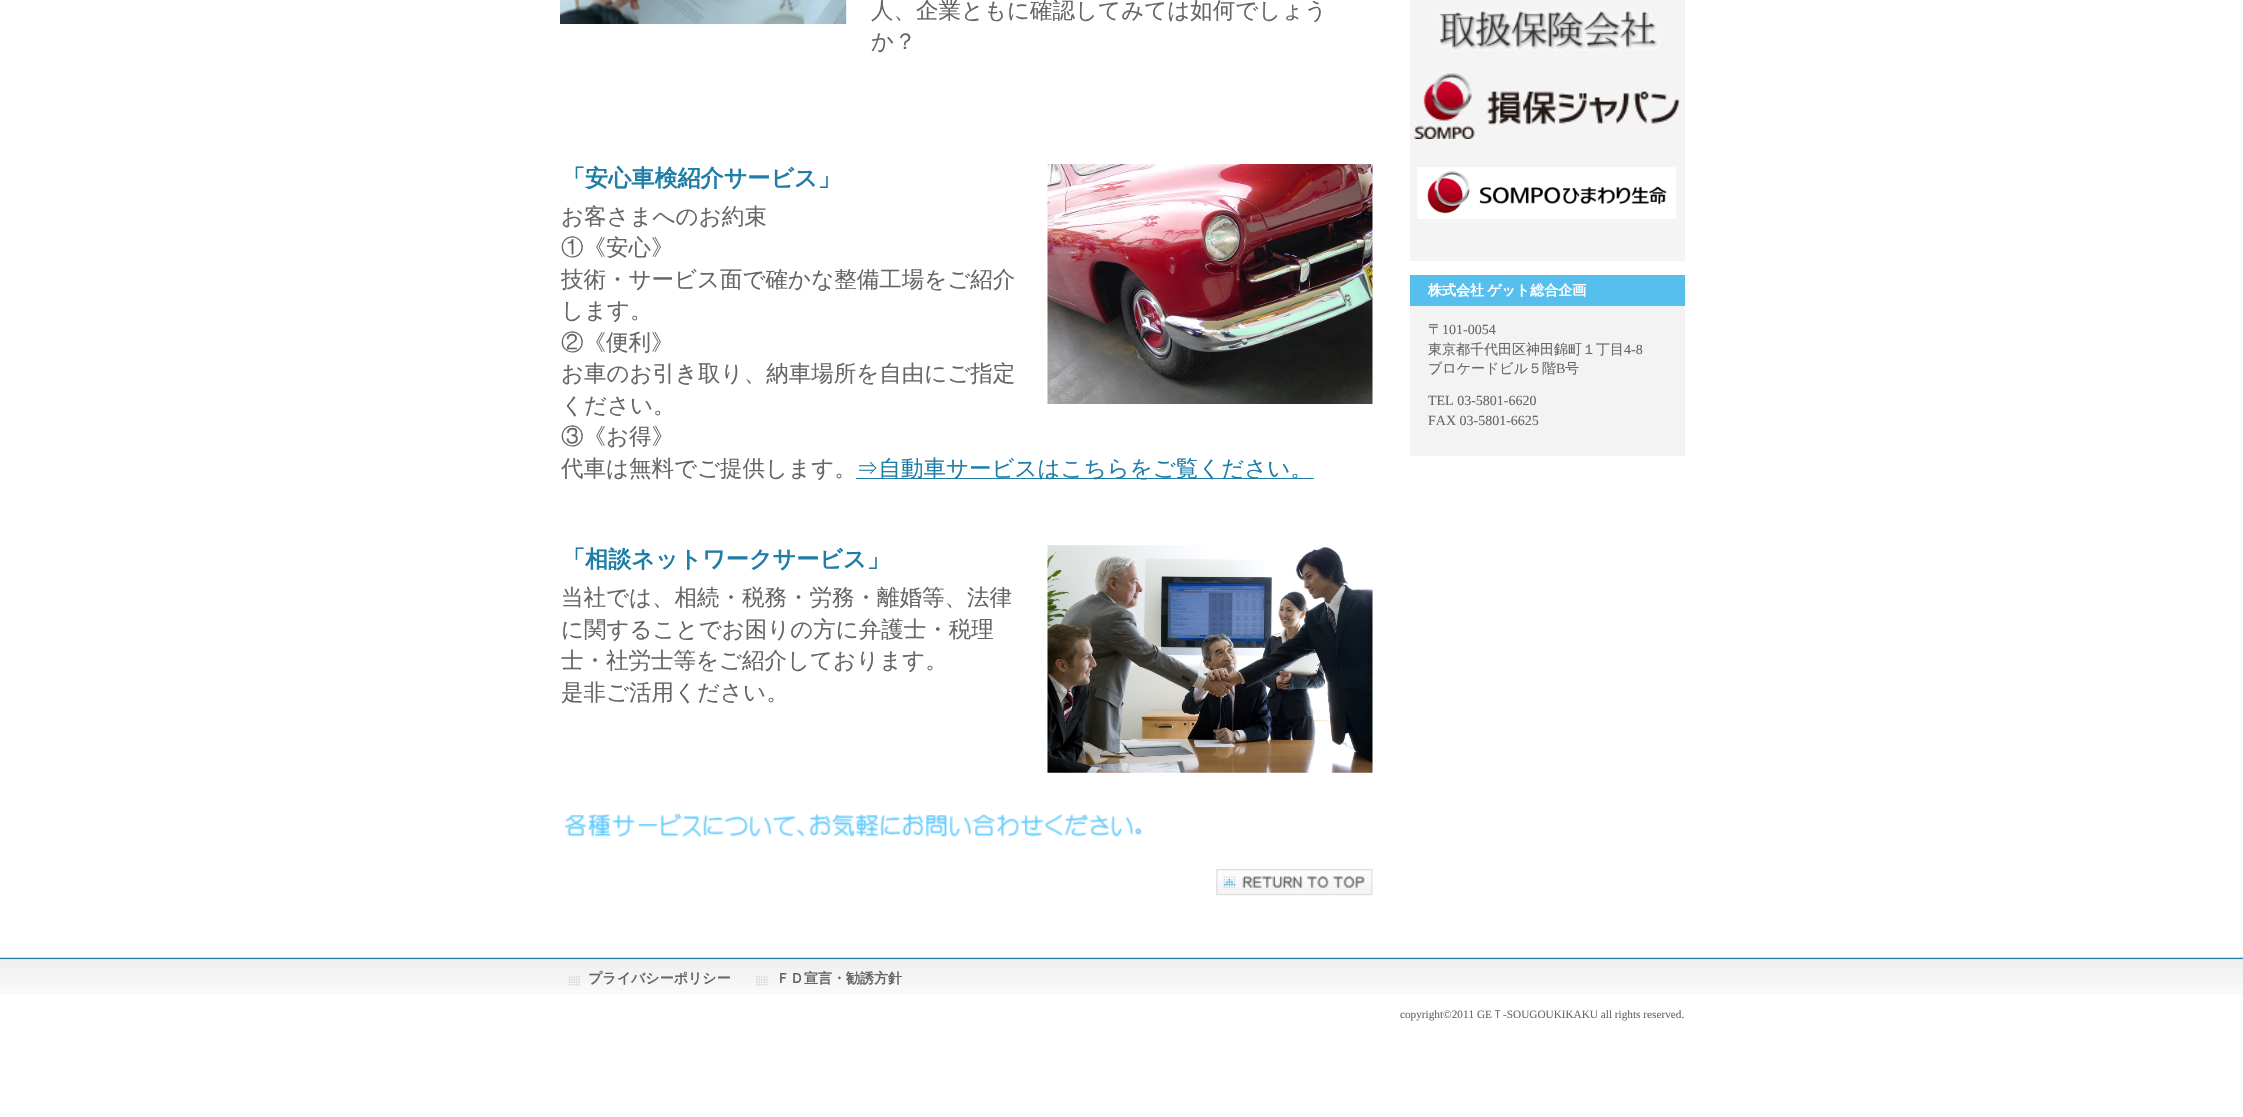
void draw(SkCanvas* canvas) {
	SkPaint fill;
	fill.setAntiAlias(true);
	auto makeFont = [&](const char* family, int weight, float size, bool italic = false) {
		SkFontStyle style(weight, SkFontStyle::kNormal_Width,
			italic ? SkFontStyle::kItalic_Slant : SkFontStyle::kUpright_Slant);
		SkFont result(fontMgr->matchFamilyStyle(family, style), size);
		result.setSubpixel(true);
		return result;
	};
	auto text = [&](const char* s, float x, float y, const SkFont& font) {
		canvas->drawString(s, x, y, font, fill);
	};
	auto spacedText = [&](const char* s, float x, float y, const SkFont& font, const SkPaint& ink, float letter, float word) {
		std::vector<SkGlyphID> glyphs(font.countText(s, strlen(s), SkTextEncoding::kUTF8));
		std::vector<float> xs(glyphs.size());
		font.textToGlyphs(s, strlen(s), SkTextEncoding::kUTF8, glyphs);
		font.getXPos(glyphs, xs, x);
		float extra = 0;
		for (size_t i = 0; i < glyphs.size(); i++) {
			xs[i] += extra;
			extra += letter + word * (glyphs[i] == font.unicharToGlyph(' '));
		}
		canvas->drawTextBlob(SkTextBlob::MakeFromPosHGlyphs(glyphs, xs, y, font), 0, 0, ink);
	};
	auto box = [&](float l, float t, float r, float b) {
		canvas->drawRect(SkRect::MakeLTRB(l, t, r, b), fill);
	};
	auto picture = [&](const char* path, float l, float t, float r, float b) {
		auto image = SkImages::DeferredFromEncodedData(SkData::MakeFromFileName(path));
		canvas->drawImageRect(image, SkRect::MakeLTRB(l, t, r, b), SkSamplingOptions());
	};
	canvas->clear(0xFFFFFFFF);
	picture("image0.png", 0, 957, 2243, 995);
	picture("image1.png", 560, 0, 847, 24);
	picture("image2.png", 1047, 164, 1373, 404);
	fill.setColor(0xFF1F7EA7);
	box(856, 478, 1314, 479);
	picture("image3.png", 1047, 545, 1373, 773);
	picture("image4.png", 564, 813, 1142, 837);
	picture("image5.png", 1216, 869, 1373, 896);
	fill.setColor(0xFFF4F4F4);
	box(1410, 0, 1685, 261);
	picture("image6.png", 1438, 9, 1660, 51);
	picture("image7.png", 1413, 73, 1680, 139);
	picture("image8.png", 1417, 167, 1676, 219);
	fill.setColor(0xFFF3F3F3);
	box(1410, 306, 1685, 456);
	fill.setColor(0xFF56BFED);
	box(1410, 275, 1685, 306);
	picture("image9.png", 568, 976, 580, 986);
	picture("image10.png", 756, 976, 768, 986);
	auto font1 = makeFont("WenQuanYi Zen Hei", 500, 22.5f);
	fill.setColor(0xFF666666);
	text("人、企業ともに確認してみては如何でしょう", 871, 18, font1);
	text("か？", 871, 49, font1);
	auto font2 = makeFont("WenQuanYi Zen Hei", 700, 23.1f);
	fill.setColor(0xFF1F7EA7);
	text("「安心車検紹介サービス」", 562, 186, font2);
	fill.setColor(0xFF666666);
	text("お客さまへのお約束", 561, 224, font1);
	text("①《安心》", 561, 255, font1);
	text("技術・サービス面で確かな整備工場をご紹介", 561, 287, font1);
	text("します。", 561, 318, font1);
	text("②《便利》", 561, 350, font1);
	text("お車のお引き取り、納車場所を自由にご指定", 561, 381, font1);
	text("ください。", 561, 413, font1);
	text("③《お得》", 561, 444, font1);
	text("代車は無料でご提供します。", 561, 476, font1);
	fill.setColor(0xFF1F7EA7);
	text("⇒自動車サービスはこちらをご覧ください。", 856, 476, font1);
	text("「相談ネットワークサービス」", 562, 567, font2);
	fill.setColor(0xFF666666);
	text("当社では、相続・税務・労務・離婚等、法律", 561, 605, font1);
	text("に関することでお困りの方に弁護士・税理", 561, 637, font1);
	text("士・社労士等をご紹介しております。", 561, 668, font1);
	text("是非ご活用ください。", 561, 700, font1);
	auto font3 = makeFont("WenQuanYi Zen Hei", 700, 14);
	fill.setColor(0xFFFFFFFF);
	spacedText("株式会社 ゲット総合企画", 1428, 295, font3, fill, 0, -1);
	auto font4 = makeFont("WenQuanYi Zen Hei", 500, 14);
	fill.setColor(0xFF666666);
	text("〒", 1428, 334, font4);
	auto font5 = makeFont("Liberation Serif", 400, 14);
	text("101-0054", 1442, 334, font5);
	text("東京都千代田区神田錦町１丁目", 1428, 354, font4);
	text("4-8", 1624, 354, font5);
	text("ブロケードビル５階", 1428, 373, font4);
	text("B", 1556, 373, font5);
	text("号", 1565, 373, font4);
	text("TEL 03-5801-6620", 1428, 405, font5);
	text("FAX 03-5801-6625", 1428, 425, font5);
	text("プライバシーポリシー", 588, 983, font3);
	text("ＦＤ宣言・勧誘方針", 776, 983, font3);
	auto font6 = makeFont("Liberation Serif", 400, 11.25f);
	text("copyright©2011 GE", 1400, 1018, font6);
	auto font7 = makeFont("WenQuanYi Zen Hei", 500, 11.25f);
	text("Ｔ", 1492, 1018, font7);
	text("-SOUGOUKIKAKU all rights reserved.", 1503, 1018, font6);
}
